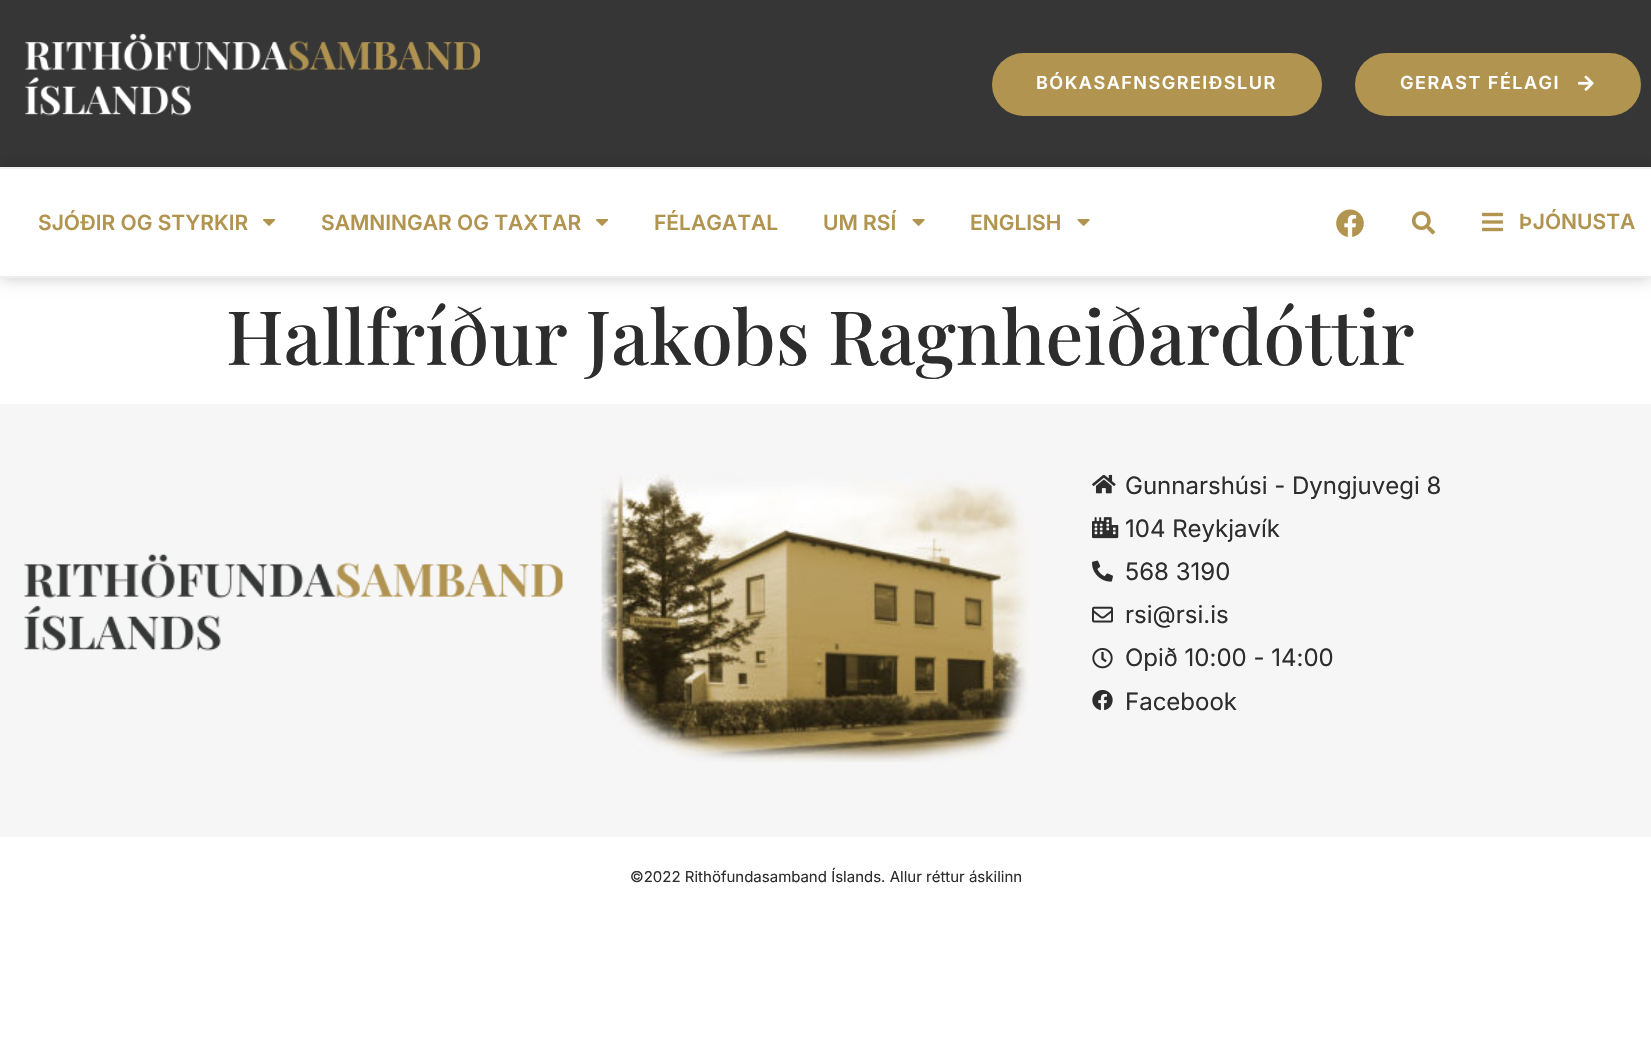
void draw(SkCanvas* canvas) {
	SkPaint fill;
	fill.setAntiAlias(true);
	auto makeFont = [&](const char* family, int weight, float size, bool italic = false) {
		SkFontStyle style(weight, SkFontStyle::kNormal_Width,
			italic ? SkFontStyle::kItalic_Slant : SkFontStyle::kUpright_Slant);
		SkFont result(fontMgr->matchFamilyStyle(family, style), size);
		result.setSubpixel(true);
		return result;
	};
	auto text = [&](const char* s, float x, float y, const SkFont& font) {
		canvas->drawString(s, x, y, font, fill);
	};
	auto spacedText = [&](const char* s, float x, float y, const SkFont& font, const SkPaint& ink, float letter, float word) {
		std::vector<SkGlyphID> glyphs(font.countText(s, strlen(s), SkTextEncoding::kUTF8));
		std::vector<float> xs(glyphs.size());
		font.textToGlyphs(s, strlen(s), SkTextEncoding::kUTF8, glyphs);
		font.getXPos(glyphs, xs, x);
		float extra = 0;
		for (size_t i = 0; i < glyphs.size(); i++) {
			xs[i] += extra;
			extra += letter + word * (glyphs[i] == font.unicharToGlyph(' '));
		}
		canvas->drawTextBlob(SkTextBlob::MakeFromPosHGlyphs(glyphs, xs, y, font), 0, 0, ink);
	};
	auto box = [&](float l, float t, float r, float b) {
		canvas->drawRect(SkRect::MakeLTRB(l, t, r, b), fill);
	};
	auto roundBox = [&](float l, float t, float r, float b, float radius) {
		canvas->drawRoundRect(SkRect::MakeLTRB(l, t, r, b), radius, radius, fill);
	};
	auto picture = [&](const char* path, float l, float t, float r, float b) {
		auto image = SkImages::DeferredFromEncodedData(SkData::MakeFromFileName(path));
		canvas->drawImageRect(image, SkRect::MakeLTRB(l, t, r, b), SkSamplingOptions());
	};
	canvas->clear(0xFFFFFFFF);
	fill.setColor(0xFF363636);
	box(0, 0, 1651, 167);
	picture("image0.png", 25, 33, 480, 116);
	fill.setColor(0xFFB19450);
	roundBox(992, 53, 1322, 116, 31.5f);
	roundBox(1355, 53, 1641, 116, 31.5f);
	picture("image1.png", 1578, 75, 1594, 91);
	canvas->save();
	canvas->clipPath(SkPathBuilder(SkPathFillType::kEvenOdd).moveTo(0, 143).lineTo(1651, 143).lineTo(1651, 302).lineTo(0, 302).close().moveTo(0, 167).lineTo(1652, 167).lineTo(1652, 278).lineTo(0, 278).close().detach(), true);
	fill.setColor(0x36000000);
	fill.setMaskFilter(SkMaskFilter::MakeBlur(kNormal_SkBlurStyle, 7.5f));
	canvas->drawRect(SkRect::MakeLTRB(0, 167, 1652, 278), fill);
	fill.setMaskFilter(nullptr);
	canvas->restore();
	fill.setColor(0xFFEEEEEE);
	box(0, 167, 1651, 169);
	box(0, 276, 1651, 278);
	picture("image2.png", 263, 219, 276, 226);
	picture("image2.png", 596, 219, 609, 226);
	picture("image3.png", 912, 219, 925, 226);
	picture("image3.png", 1077, 219, 1090, 226);
	picture("image4.png", 1336, 209, 1364, 237);
	picture("image5.png", 1412, 211, 1435, 235);
	picture("image6.png", 1482, 212, 1503, 232);
	fill.setColor(0xFFF6F6F6);
	box(0, 404, 1651, 837);
	picture("image7.png", 24, 553, 563, 651);
	picture("image8.png", 601, 474, 1029, 762);
	picture("image9.png", 1092, 474, 1116, 494);
	picture("image10.png", 1092, 517, 1119, 539);
	picture("image11.png", 1092, 560, 1113, 582);
	picture("image12.png", 1092, 606, 1113, 623);
	picture("image13.png", 1092, 648, 1113, 669);
	picture("image14.png", 1092, 689, 1113, 711);
	auto font1 = makeFont("Inter", 600, 18);
	fill.setColor(0xFFFFFFFF);
	spacedText("BÓKASAFNSGREIÐSLUR", 1036, 89, font1, fill, 1.5f, 0);
	spacedText("GERAST FÉLAGI", 1400, 89, font1, fill, 1.5f, 0);
	auto font2 = makeFont("Inter", 600, 21);
	fill.setColor(0xFFB19450);
	text("SJÓÐIR OG STYRKIR", 38, 230, font2);
	text("SAMNINGAR OG TAXTAR", 321, 230, font2);
	text("FÉLAGATAL", 654, 230, font2);
	text("UM RSÍ", 823, 230, font2);
	text("ENGLISH", 970, 230, font2);
	text("ÞJÓNUSTA", 1519, 229, font2);
	auto font3 = makeFont("Playfair Display", 500, 75);
	fill.setColor(0xFF2D2D2D);
	text("Hallfríður Jakobs Ragnheiðardóttir", 226, 365, font3);
	auto font4 = makeFont("Inter", 400, 24);
	text("Gunnarshúsi - Dyngjuvegi 8", 1125, 494, font4);
	text("104 Reykjavík", 1125, 537, font4);
	text("568 3190", 1125, 580, font4);
	text("rsi@rsi.is", 1125, 623, font4);
	text("Opið 10:00 - 14:00", 1125, 666, font4);
	text("Facebook", 1125, 710, font4);
	auto font5 = makeFont("Inter", 400, 15);
	text("©2022 Rithöfundasamband Íslands. Allur réttur áskilinn", 630, 882, font5);
}
